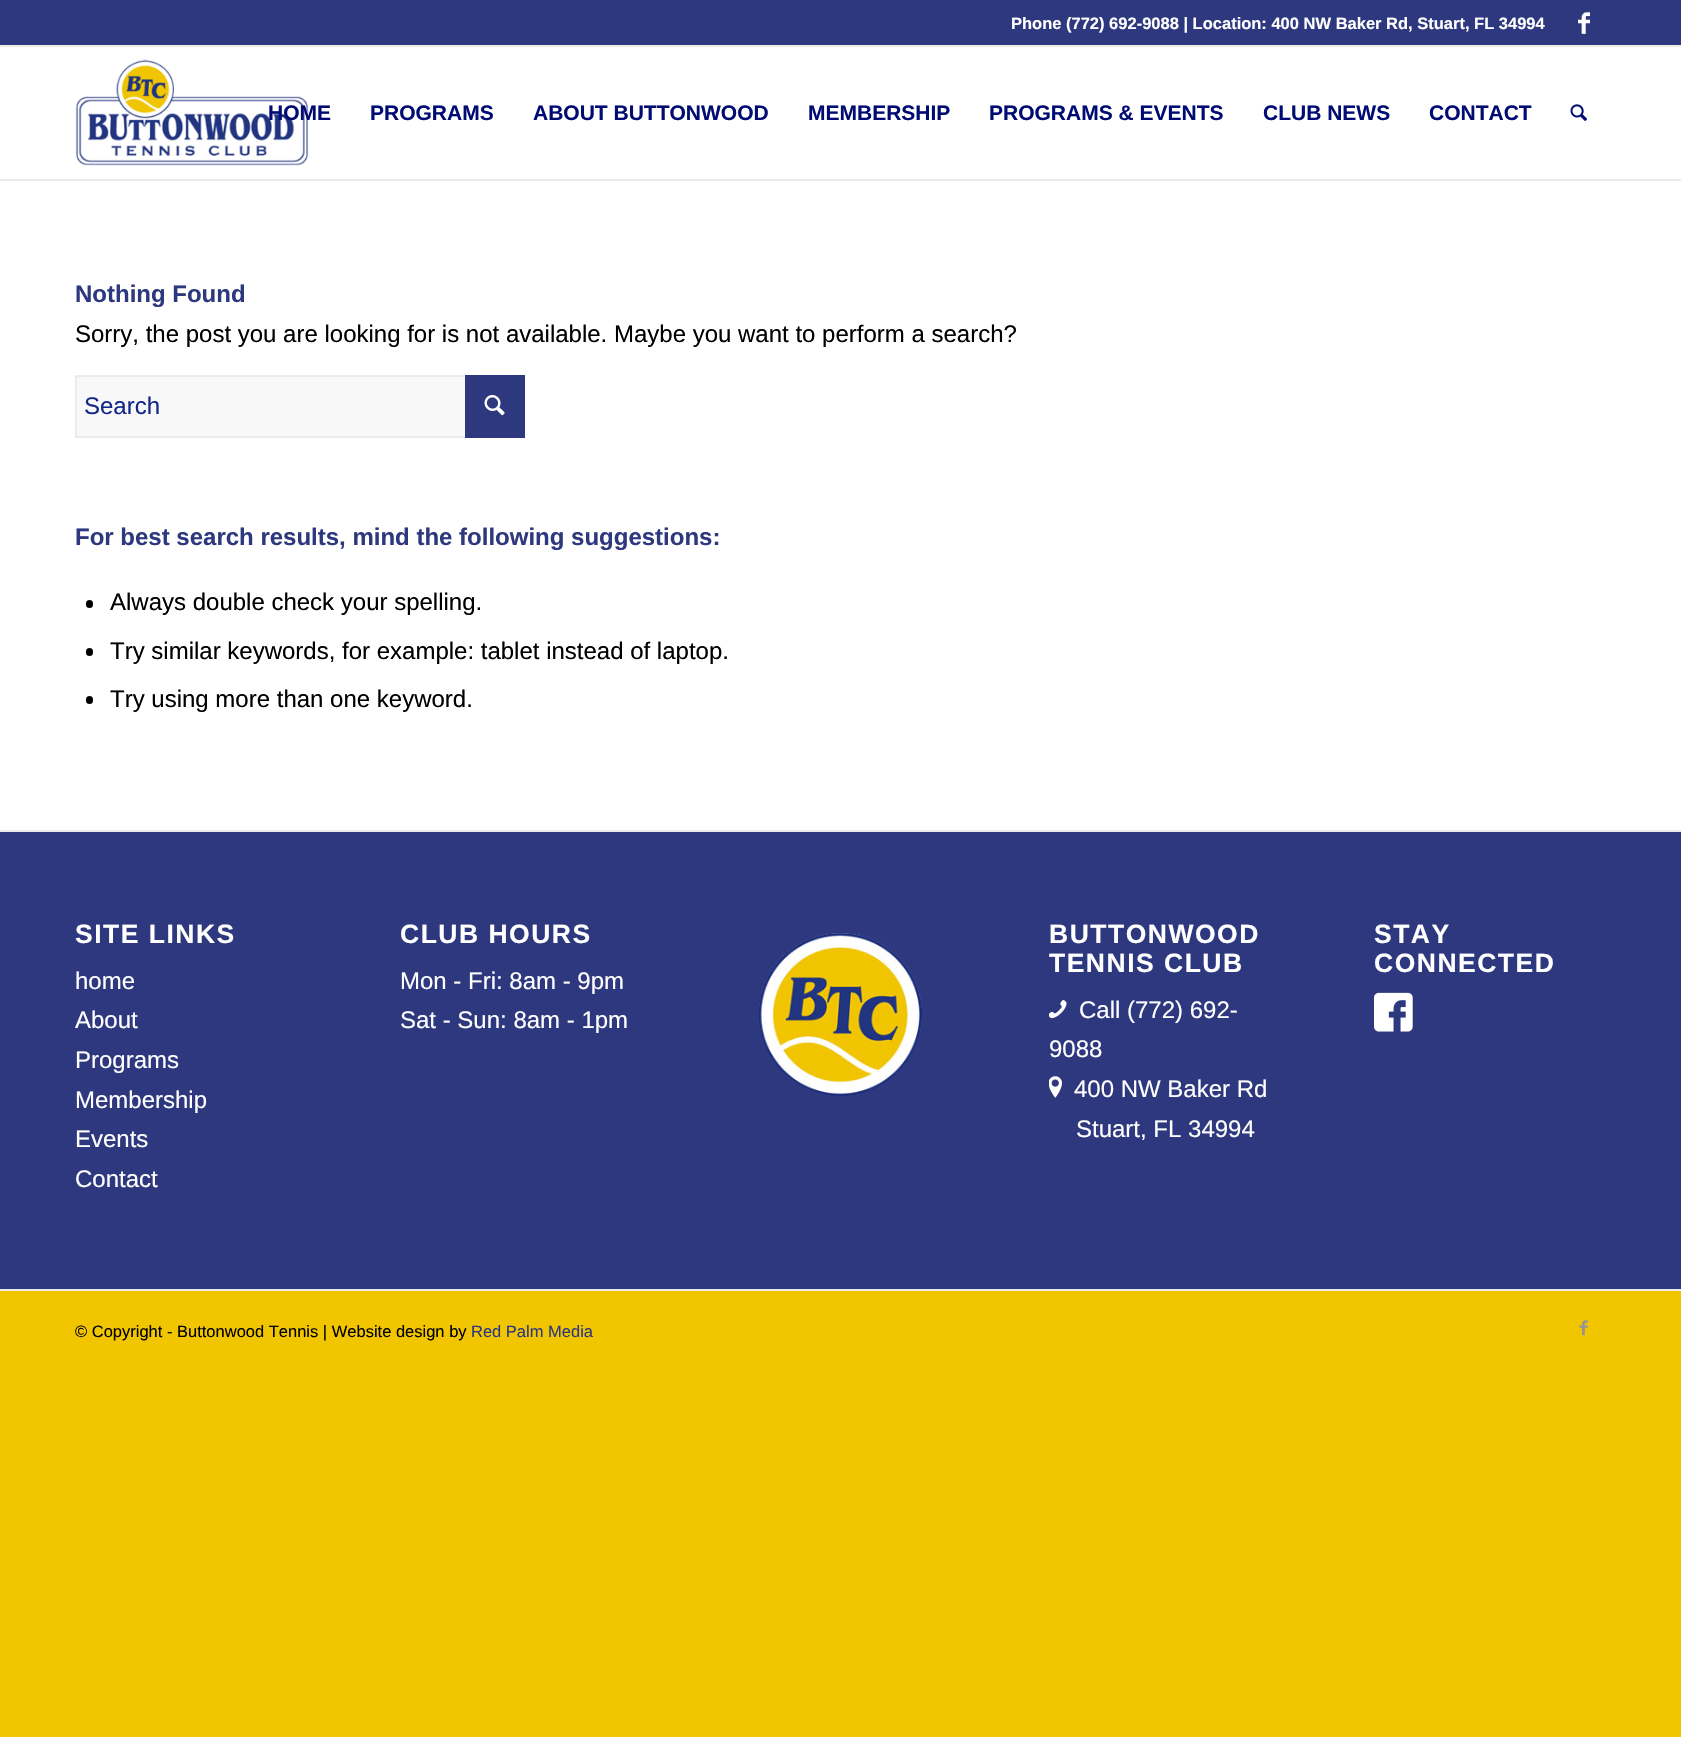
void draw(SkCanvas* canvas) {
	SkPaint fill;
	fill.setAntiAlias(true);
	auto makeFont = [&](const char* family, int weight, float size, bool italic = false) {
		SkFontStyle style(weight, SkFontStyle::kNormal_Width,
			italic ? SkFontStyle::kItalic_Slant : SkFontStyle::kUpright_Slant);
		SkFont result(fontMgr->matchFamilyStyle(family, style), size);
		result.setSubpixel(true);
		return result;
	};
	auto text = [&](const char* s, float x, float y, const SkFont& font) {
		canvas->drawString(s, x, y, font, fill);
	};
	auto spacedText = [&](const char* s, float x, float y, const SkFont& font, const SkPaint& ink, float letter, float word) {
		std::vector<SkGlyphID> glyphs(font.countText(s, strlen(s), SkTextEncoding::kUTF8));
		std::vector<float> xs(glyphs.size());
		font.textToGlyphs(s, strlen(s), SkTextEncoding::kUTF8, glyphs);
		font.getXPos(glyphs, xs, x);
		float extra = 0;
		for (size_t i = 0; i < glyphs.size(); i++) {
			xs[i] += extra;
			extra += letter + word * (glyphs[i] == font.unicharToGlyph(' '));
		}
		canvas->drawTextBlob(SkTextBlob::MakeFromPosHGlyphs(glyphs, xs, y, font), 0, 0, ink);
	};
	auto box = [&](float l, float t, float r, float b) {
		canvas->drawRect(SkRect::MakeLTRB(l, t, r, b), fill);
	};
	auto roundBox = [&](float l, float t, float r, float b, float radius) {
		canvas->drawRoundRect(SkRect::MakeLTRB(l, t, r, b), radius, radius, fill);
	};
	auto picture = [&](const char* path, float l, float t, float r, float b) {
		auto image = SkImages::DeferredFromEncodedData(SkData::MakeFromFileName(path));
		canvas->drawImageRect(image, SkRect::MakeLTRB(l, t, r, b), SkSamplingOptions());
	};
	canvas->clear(0xFFF1C500);
	fill.setColor(0xFF2D387E);
	box(0, 0, 1681, 45);
	fill.setColor(0xFFEBEBEB);
	box(0, 45, 1681, 47);
	picture("image0.png", 1578, 12, 1590, 34);
	fill.setColor(0xFFFFFFFF);
	box(0, 47, 1681, 179);
	fill.setColor(0xFFEBEBEB);
	box(0, 179, 1681, 181);
	picture("image1.png", 75, 59, 309, 166);
	picture("image2.png", 1570, 104, 1587, 121);
	fill.setColor(0xFFFFFFFF);
	box(0, 181, 1681, 830);
	fill.setColor(0xFFF8F8F8);
	box(77, 377, 465, 436);
	fill.setStyle(SkPaint::kStroke_Style);
	fill.setStrokeWidth(2);
	fill.setColor(0xFFEBEBEB);
	canvas->drawRect(SkRect::MakeLTRB(76, 376, 524, 437), fill);
	fill.setStyle(SkPaint::kFill_Style);
	fill.setColor(0xFF2D387E);
	box(465, 375, 525, 438);
	picture("image3.png", 484, 395, 505, 416);
	fill.setColor(0xFF000000);
	roundBox(86, 600, 93, 608, 3.5f);
	roundBox(86, 648, 93, 656, 3.5f);
	roundBox(86, 696, 93, 704, 3.5f);
	fill.setColor(0xFF2D387E);
	box(0, 832, 1681, 1289);
	fill.setColor(0xFFEBEBEB);
	box(0, 830, 1681, 832);
	picture("image4.png", 759, 933, 922, 1096);
	picture("image5.png", 1049, 1000, 1067, 1019);
	picture("image6.png", 1049, 1076, 1062, 1098);
	picture("image7.png", 1374, 992, 1413, 1032);
	box(0, 1289, 1681, 1291);
	picture("image8.png", 1579, 1320, 1588, 1336);
	auto font1 = makeFont("Liberation Sans", 700, 16.5f);
	fill.setColor(0xFFFFFFFF);
	text("Phone (772) 692-9088 | Location: 400 NW Baker Rd, Stuart, FL 34994", 1011, 29, font1);
	auto font2 = makeFont("Liberation Sans", 700, 21);
	fill.setColor(0xFF000C73);
	text("HOME", 268, 120, font2);
	text("PROGRAMS", 370, 120, font2);
	text("ABOUT BUTTONWOOD", 533, 120, font2);
	text("MEMBERSHIP", 808, 120, font2);
	text("PROGRAMS & EVENTS", 989, 120, font2);
	text("CLUB NEWS", 1263, 120, font2);
	text("CONTACT", 1429, 120, font2);
	auto font3 = makeFont("Liberation Sans", 700, 24);
	fill.setColor(0xFF2D387E);
	text("Nothing Found", 75, 302, font3);
	auto font4 = makeFont("Liberation Sans", 400, 24);
	fill.setColor(0xFF000000);
	text("Sorry, the post you are looking for is not available. Maybe you want to perform a search?", 75, 342, font4);
	fill.setColor(0xFF13278A);
	text("Search", 84, 414, font4);
	fill.setColor(0xFF2D387E);
	text("For best search results, mind the following suggestions:", 75, 545, font3);
	fill.setColor(0xFF000000);
	text("Always double check your spelling.", 110, 610, font4);
	text("Try similar keywords, for example: tablet instead of laptop.", 110, 659, font4);
	text("Try using more than one keyword.", 110, 707, font4);
	auto font5 = makeFont("Liberation Sans", 700, 26.5f);
	fill.setColor(0xFFFFFFFF);
	spacedText("SITE LINKS", 75, 943, font5, fill, 1.5f, 0);
	text("home", 75, 989, font4);
	text("About", 75, 1028, font4);
	text("Programs", 75, 1068, font4);
	text("Membership", 75, 1108, font4);
	text("Events", 75, 1147, font4);
	text("Contact", 75, 1187, font4);
	spacedText("CLUB HOURS", 400, 943, font5, fill, 1.5f, 0);
	text("Mon - Fri: 8am - 9pm", 400, 989, font4);
	text("Sat - Sun: 8am - 1pm", 400, 1028, font4);
	spacedText("BUTTONWOOD", 1049, 943, font5, fill, 1.5f, 0);
	spacedText("TENNIS CLUB", 1049, 972, font5, fill, 1.5f, 0);
	text("Call (772) 692-", 1079, 1018, font4);
	text("9088", 1049, 1057, font4);
	text("400 NW Baker Rd", 1074, 1097, font4);
	text("Stuart, FL 34994", 1076, 1137, font4);
	spacedText("STAY", 1374, 943, font5, fill, 1.5f, 0);
	spacedText("CONNECTED", 1374, 972, font5, fill, 1.5f, 0);
	auto font6 = makeFont("Liberation Sans", 400, 16.5f);
	fill.setColor(0xFF000000);
	text("© Copyright - Buttonwood Tennis | Website design by", 75, 1337, font6);
	fill.setColor(0xFF2D387E);
	text("Red Palm Media", 471, 1337, font6);
}
